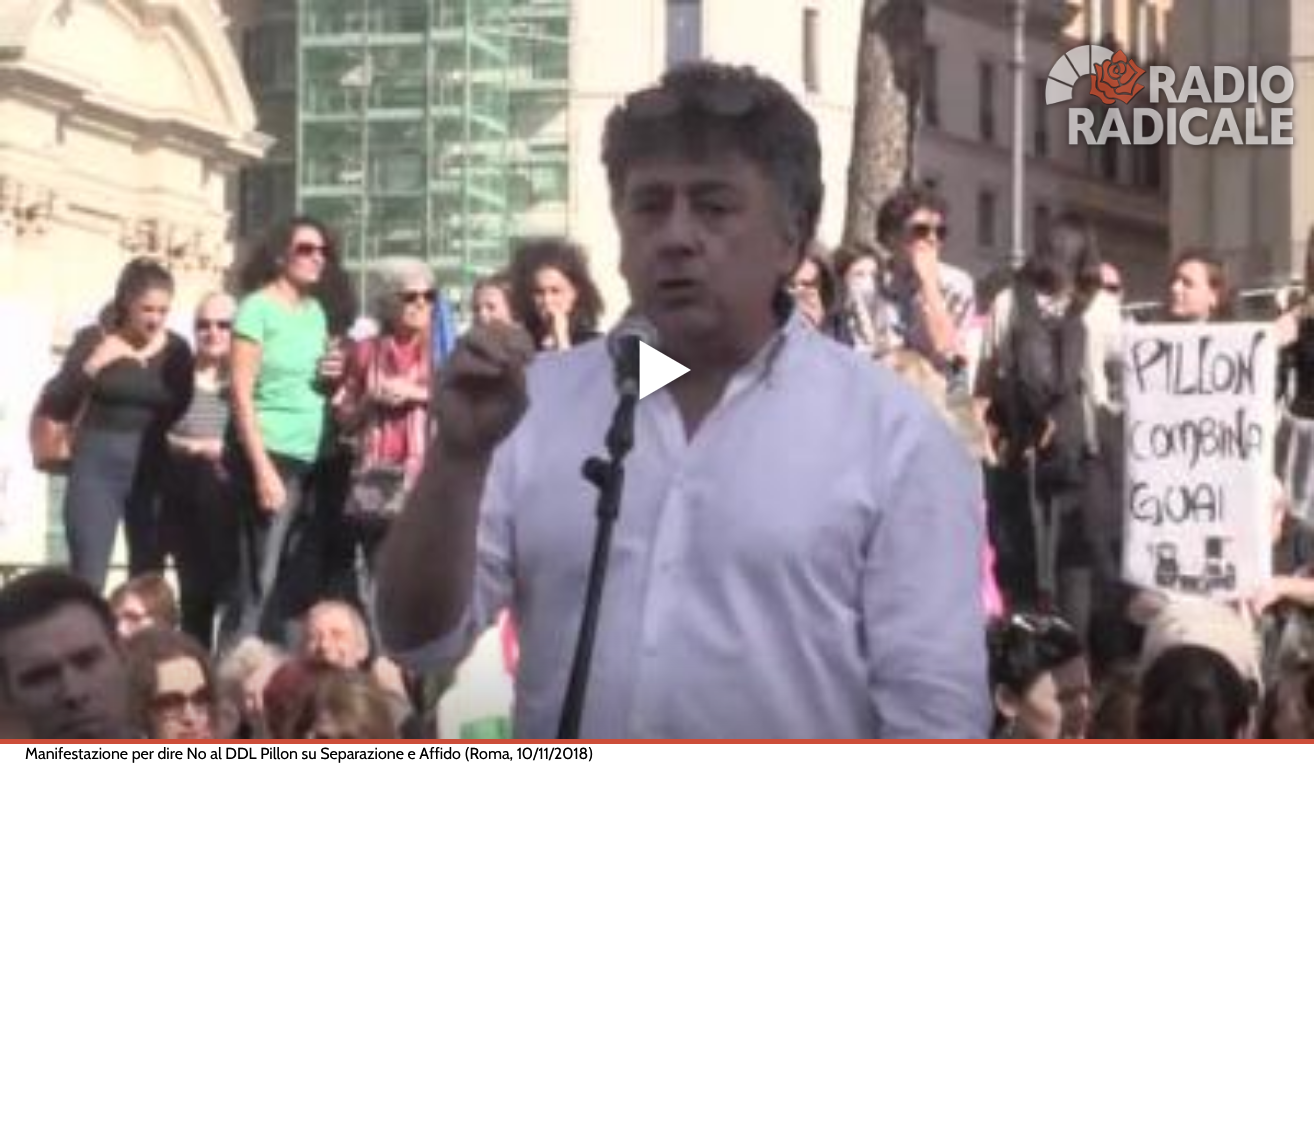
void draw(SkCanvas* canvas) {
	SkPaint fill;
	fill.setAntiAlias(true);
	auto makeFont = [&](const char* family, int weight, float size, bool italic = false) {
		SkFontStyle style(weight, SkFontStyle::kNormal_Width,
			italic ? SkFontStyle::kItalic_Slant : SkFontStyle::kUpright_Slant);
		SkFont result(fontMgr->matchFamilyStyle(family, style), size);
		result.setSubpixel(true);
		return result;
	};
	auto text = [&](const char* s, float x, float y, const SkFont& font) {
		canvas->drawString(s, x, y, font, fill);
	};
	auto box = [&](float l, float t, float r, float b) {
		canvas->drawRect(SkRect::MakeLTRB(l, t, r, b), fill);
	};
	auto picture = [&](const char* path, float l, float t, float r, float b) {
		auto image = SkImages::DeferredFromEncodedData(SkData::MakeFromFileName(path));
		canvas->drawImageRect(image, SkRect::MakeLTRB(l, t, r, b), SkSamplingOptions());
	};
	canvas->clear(0xFFFFFFFF);
	picture("image0.png", 0, 0, 1314, 739);
	picture("image1.png", 1042, 41, 1300, 151);
	picture("image2.png", 632, 336, 691, 405);
	fill.setColor(0xFFCC4D39);
	box(0, 739, 1314, 744);
	auto font1 = makeFont("Cabin", 400, 16);
	fill.setColor(0xFF000000);
	text("Manifestazione per dire No al DDL Pillon su Separazione e Affido (Roma, 10/11/2018)", 25, 759, font1);
}
